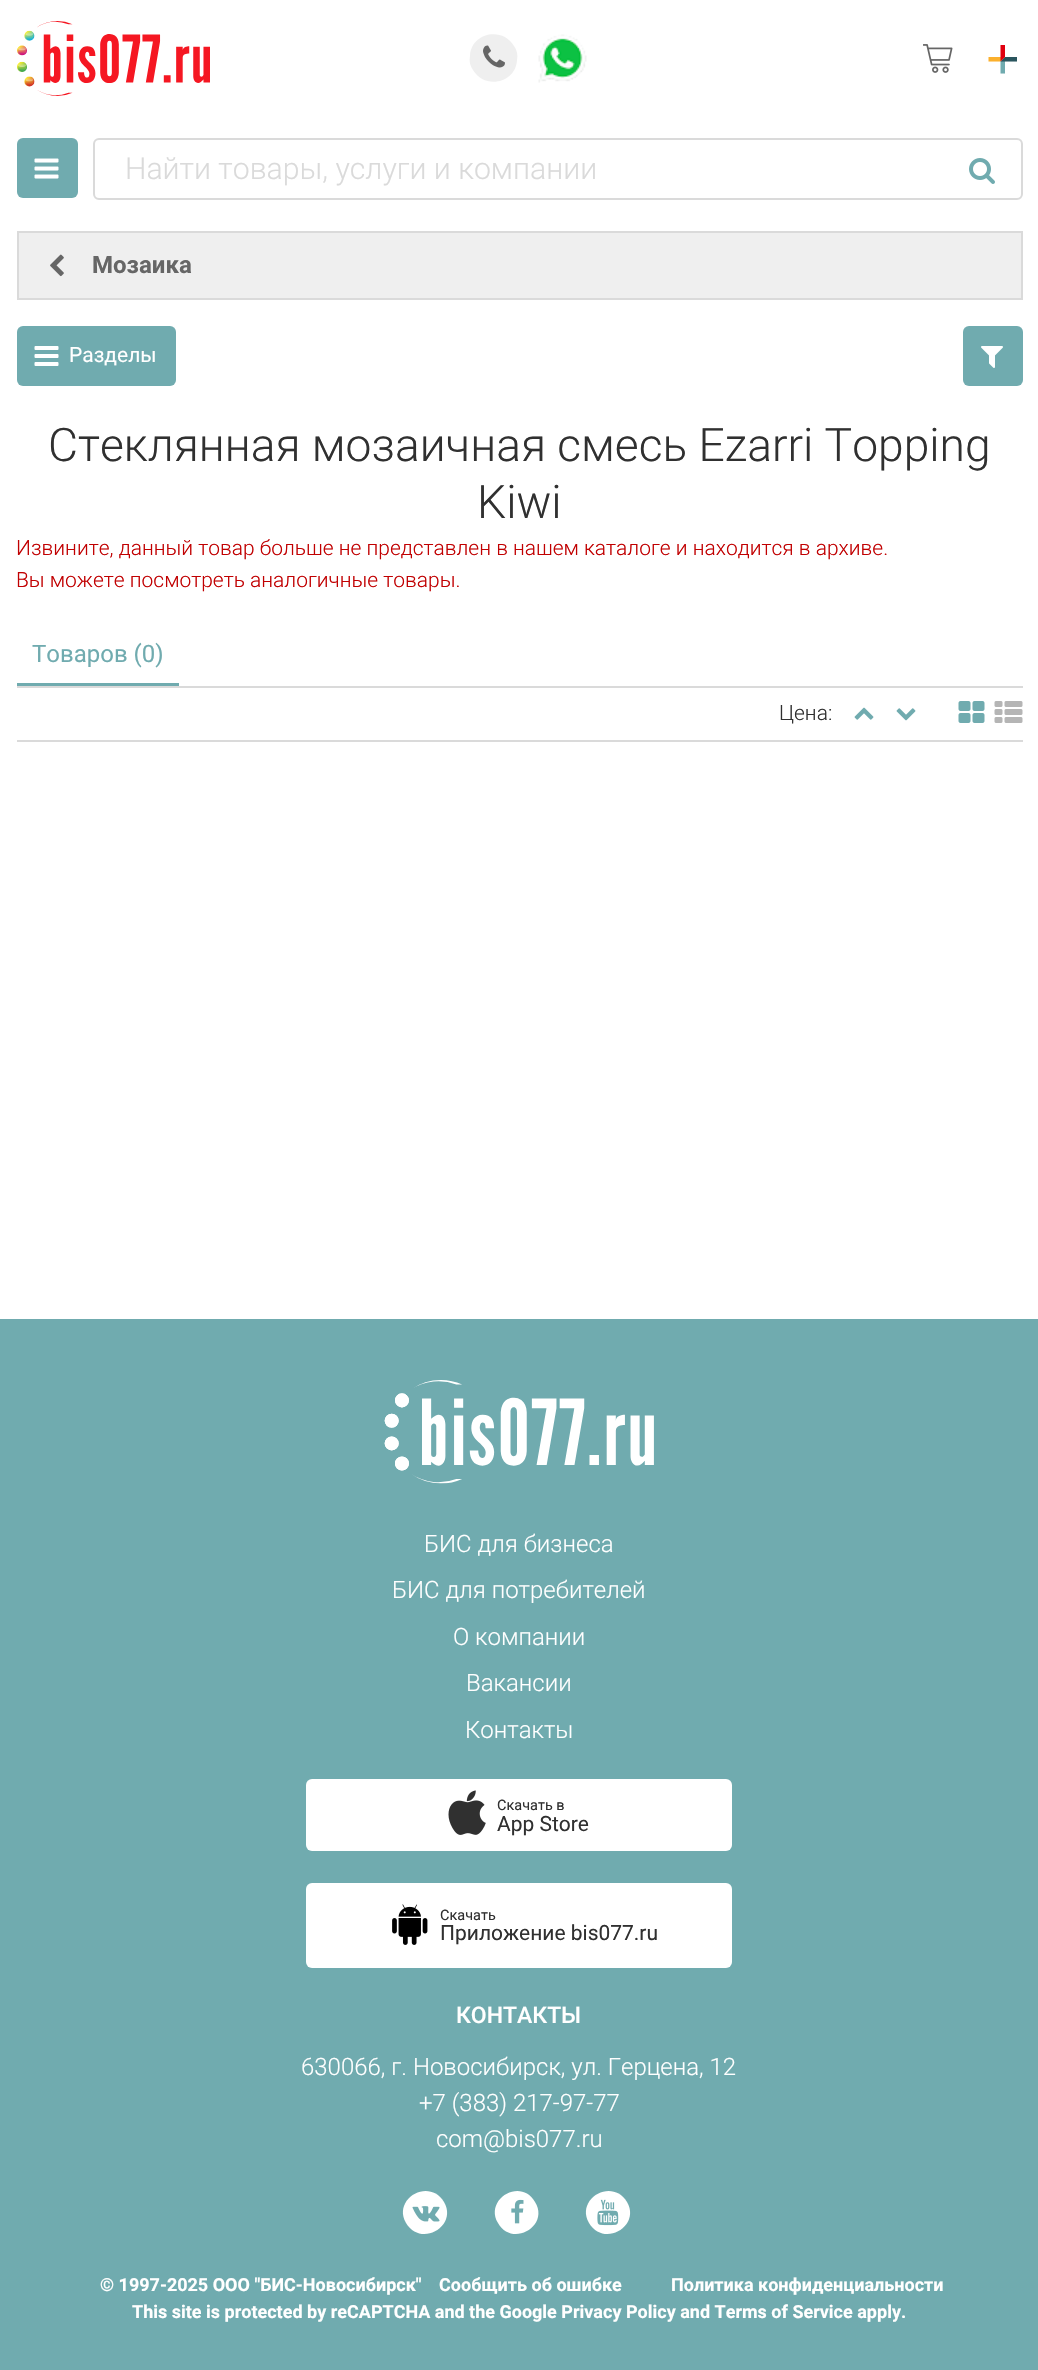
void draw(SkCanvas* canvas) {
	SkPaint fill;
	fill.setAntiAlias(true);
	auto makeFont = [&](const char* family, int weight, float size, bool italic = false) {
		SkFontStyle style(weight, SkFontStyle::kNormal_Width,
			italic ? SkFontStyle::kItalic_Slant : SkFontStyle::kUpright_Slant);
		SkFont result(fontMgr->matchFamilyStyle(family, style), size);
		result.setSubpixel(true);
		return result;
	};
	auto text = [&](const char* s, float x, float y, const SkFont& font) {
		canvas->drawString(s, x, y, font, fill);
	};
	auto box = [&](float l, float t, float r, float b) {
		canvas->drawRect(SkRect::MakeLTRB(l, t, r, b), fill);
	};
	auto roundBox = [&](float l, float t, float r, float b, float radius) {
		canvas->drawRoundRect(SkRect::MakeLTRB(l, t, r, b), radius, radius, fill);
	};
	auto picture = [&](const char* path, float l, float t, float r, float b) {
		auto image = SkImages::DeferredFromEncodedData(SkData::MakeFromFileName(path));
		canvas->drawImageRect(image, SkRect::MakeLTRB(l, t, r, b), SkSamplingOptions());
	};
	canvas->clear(0xFFFFFFFF);
	picture("image0.png", 17, 21, 210, 96);
	fill.setColor(0xFFEFEFEF);
	canvas->drawPath(SkPathBuilder().moveTo(514, 46).cubicTo(517, 50, 518, 55, 517, 60).cubicTo(516, 83, 485, 90, 473, 70).cubicTo(470, 66, 469, 61, 470, 56).cubicTo(471, 33, 502, 26, 514, 46).close().detach(), fill);
	picture("image1.png", 483, 45, 505, 68);
	picture("image2.png", 538, 34, 587, 83);
	picture("image3.png", 923, 44, 953, 73);
	picture("image4.png", 988, 45, 1017, 74);
	fill.setColor(0xFF70ABAF);
	roundBox(17, 138, 78, 198, 6);
	picture("image5.png", 34, 158, 59, 179);
	fill.setStyle(SkPaint::kStroke_Style);
	fill.setStrokeWidth(2);
	fill.setColor(0xFFDADADA);
	canvas->drawRoundRect(SkRect::MakeLTRB(94, 139, 1022, 199), 5, 5, fill);
	picture("image6.png", 969, 158, 995, 184);
	fill.setStyle(SkPaint::kFill_Style);
	fill.setColor(0xFFEFEFEF);
	canvas->drawRect(SkRect::MakeLTRB(18, 232, 1022, 299), fill);
	fill.setStyle(SkPaint::kStroke_Style);
	fill.setColor(0xFFDADADA);
	canvas->drawRect(SkRect::MakeLTRB(18, 232, 1022, 299), fill);
	picture("image7.png", 50, 254, 64, 277);
	fill.setStyle(SkPaint::kFill_Style);
	fill.setColor(0xFF70ABAF);
	roundBox(17, 326, 176, 386, 6);
	picture("image8.png", 34, 346, 59, 366);
	roundBox(963, 326, 1023, 386, 6);
	picture("image9.png", 981, 346, 1003, 368);
	box(17, 683, 179, 686);
	fill.setColor(0xFFDADADA);
	box(17, 686, 1023, 688);
	picture("image10.png", 854, 707, 874, 720);
	picture("image11.png", 896, 708, 916, 721);
	picture("image12.png", 958, 701, 985, 723);
	picture("image13.png", 994, 701, 1023, 723);
	box(17, 740, 1023, 742);
	fill.setColor(0xFF70ABAF);
	box(0, 1319, 1038, 2370);
	picture("image14.png", 384, 1380, 654, 1484);
	fill.setColor(0xFFFFFFFF);
	roundBox(306, 1779, 732, 1851, 6);
	picture("image15.png", 448, 1790, 486, 1835);
	roundBox(306, 1883, 732, 1968, 6);
	picture("image16.png", 392, 1904, 428, 1945);
	canvas->drawPath(SkPathBuilder().moveTo(444, 2202).cubicTo(458, 2226, 421, 2248, 406, 2223).cubicTo(392, 2199, 429, 2177, 444, 2202).close().detach(), fill);
	picture("image17.png", 412, 2206, 440, 2222);
	canvas->drawPath(SkPathBuilder().moveTo(535, 2202).cubicTo(550, 2226, 512, 2248, 498, 2223).cubicTo(484, 2199, 521, 2177, 535, 2202).close().detach(), fill);
	picture("image18.png", 511, 2199, 524, 2224);
	canvas->drawPath(SkPathBuilder().moveTo(627, 2202).cubicTo(641, 2226, 604, 2248, 589, 2223).cubicTo(575, 2199, 612, 2177, 627, 2202).close().detach(), fill);
	picture("image19.png", 597, 2199, 619, 2226);
	auto font1 = makeFont("Roboto", 300, 30.25f);
	fill.setColor(0xFFDADADA);
	text("Найти товары, услуги и компании", 125, 179, font1);
	auto font2 = makeFont("Roboto", 700, 24);
	fill.setColor(0xFF666666);
	text("Мозаика", 92, 273, font2);
	auto font3 = makeFont("Roboto", 400, 21);
	fill.setColor(0xFFFFFFFF);
	text("Разделы", 69, 362, font3);
	auto font4 = makeFont("Roboto", 300, 46.2f);
	fill.setColor(0xFF303030);
	text("Стеклянная мозаичная смесь Ezarri Topping", 48, 461, font4);
	text("Kiwi", 477, 518, font4);
	auto font5 = makeFont("Roboto", 300, 21);
	fill.setColor(0xFFC10001);
	text("Извините, данный товар больше не представлен в нашем каталоге и находится в архиве.", 16, 555, font5);
	text("Вы можете посмотреть аналогичные товары.", 16, 587, font5);
	auto font6 = makeFont("Roboto", 400, 24);
	fill.setColor(0xFF70ABAF);
	text("Товаров (0)", 32, 662, font6);
	fill.setColor(0xFF303030);
	text("Цена:", 779, 720, font5);
	auto font7 = makeFont("Roboto", 300, 24);
	fill.setColor(0xFFFFFFFF);
	text("БИС для бизнеса", 424, 1552, font7);
	text("БИС для потребителей", 392, 1598, font7);
	text("О компании", 453, 1645, font7);
	text("Вакансии", 466, 1691, font7);
	text("Контакты", 465, 1738, font7);
	auto font8 = makeFont("Roboto", 400, 14.5f);
	fill.setColor(0xFF303030);
	text("Скачать в", 497, 1810, font8);
	text("App Store", 497, 1831, font3);
	text("Скачать", 440, 1920, font8);
	text("Приложение bis077.ru", 440, 1940, font3);
	auto font9 = makeFont("Roboto", 500, 23);
	fill.setColor(0xFFFFFFFF);
	text("КОНТАКТЫ", 456, 2023, font9);
	text("630066, г. Новосибирск, ул. Герцена, 12", 301, 2075, font7);
	text("+7 (383) 217-97-77", 419, 2111, font7);
	text("com@bis077.ru", 436, 2147, font7);
	auto font10 = makeFont("Roboto", 700, 18);
	text("© 1997-2025 ООО \"БИС-Новосибирск\"", 100, 2291, font10);
	text("Сообщить об ошибке", 439, 2291, font10);
	text("Политика конфиденциальности", 671, 2291, font10);
	text("This site is protected by reCAPTCHA and the Google Privacy Policy and Terms of Service apply.", 132, 2318, font10);
}
